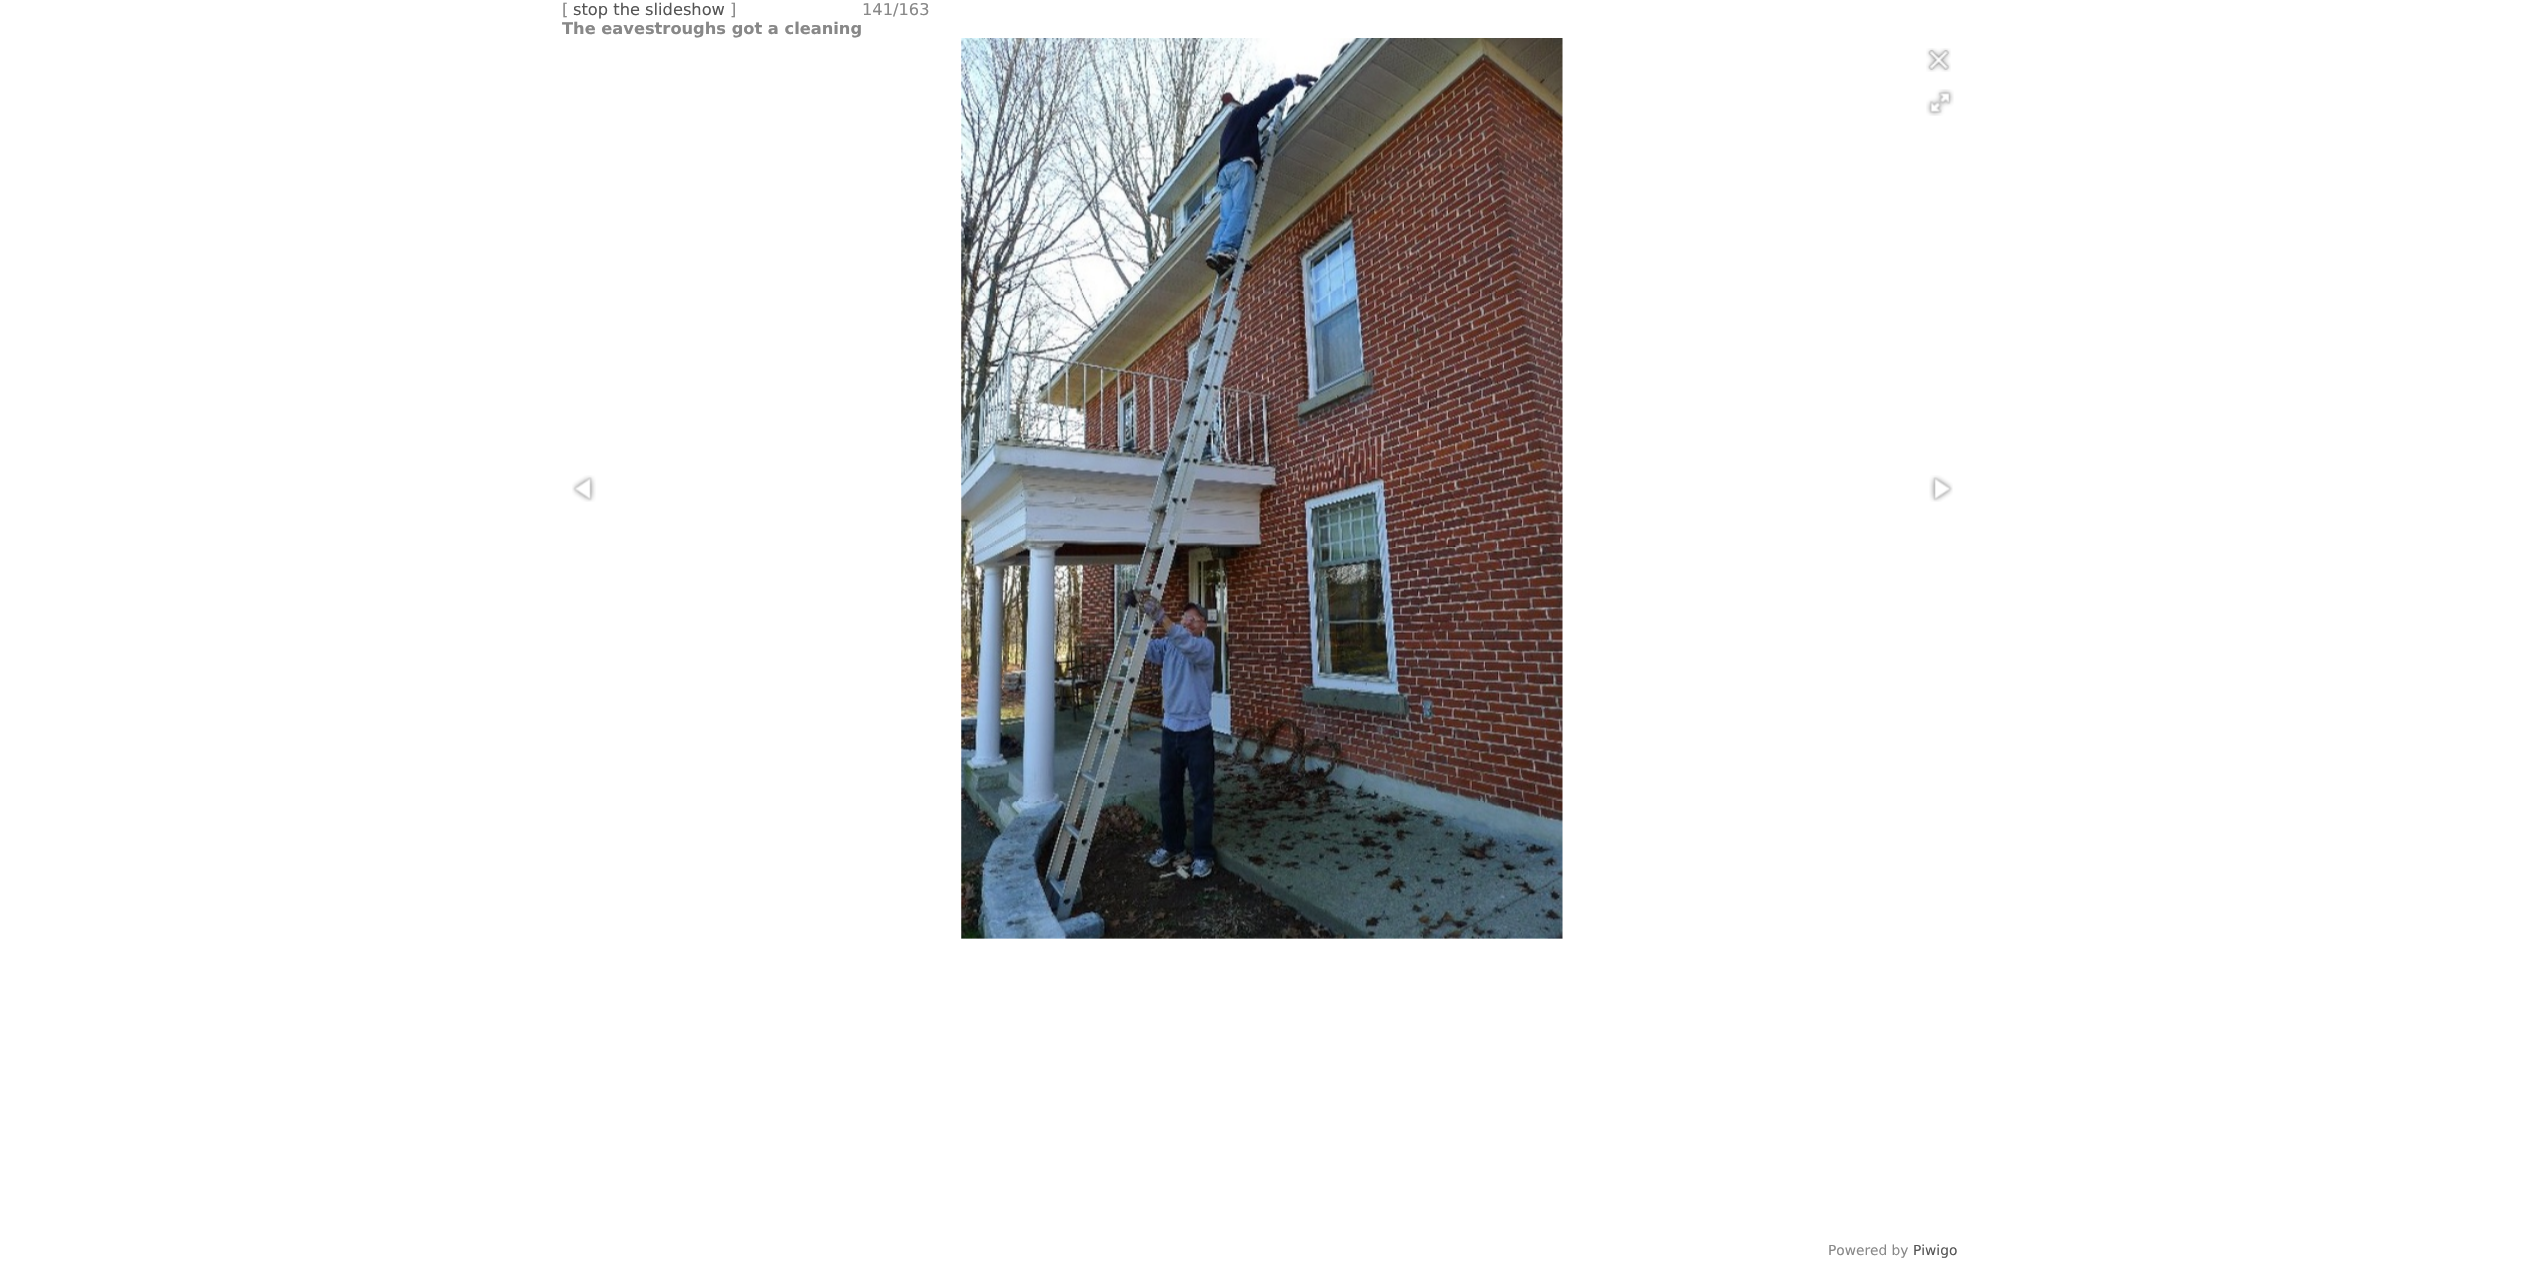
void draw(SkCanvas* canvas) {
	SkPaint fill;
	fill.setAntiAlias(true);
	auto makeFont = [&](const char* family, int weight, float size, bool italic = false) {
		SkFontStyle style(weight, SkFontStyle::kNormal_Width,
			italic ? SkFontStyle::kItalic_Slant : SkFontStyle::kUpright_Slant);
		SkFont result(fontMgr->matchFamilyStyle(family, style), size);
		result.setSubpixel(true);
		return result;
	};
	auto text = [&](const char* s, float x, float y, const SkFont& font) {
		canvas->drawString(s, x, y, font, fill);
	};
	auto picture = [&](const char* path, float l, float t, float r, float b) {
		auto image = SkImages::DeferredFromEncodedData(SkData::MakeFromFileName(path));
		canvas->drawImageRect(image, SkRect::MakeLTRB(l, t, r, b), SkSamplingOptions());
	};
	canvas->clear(0xFFFFFFFF);
	picture("image0.png", 961, 38, 1563, 939);
	picture("image1.png", 1926, 48, 1951, 72);
	picture("image2.png", 1926, 89, 1954, 116);
	picture("image3.png", 572, 475, 596, 502);
	picture("image4.png", 1929, 475, 1953, 502);
	auto font1 = makeFont("DejaVu Sans", 400, 16.25f);
	fill.setColor(0xFF888888);
	text("[", 562, 15, font1);
	fill.setColor(0xFF555555);
	text("stop the slideshow", 573, 15, font1);
	fill.setColor(0xFF888888);
	text("]", 730, 15, font1);
	auto font2 = makeFont("DejaVu Sans", 700, 16.25f);
	text("The eavestroughs got a cleaning", 562, 34, font2);
	text("141/163", 862, 15, font1);
	auto font3 = makeFont("DejaVu Sans", 400, 13.75f);
	text("Powered by", 1828, 1255, font3);
	fill.setColor(0xFF555555);
	text("Piwigo", 1913, 1255, font3);
}
